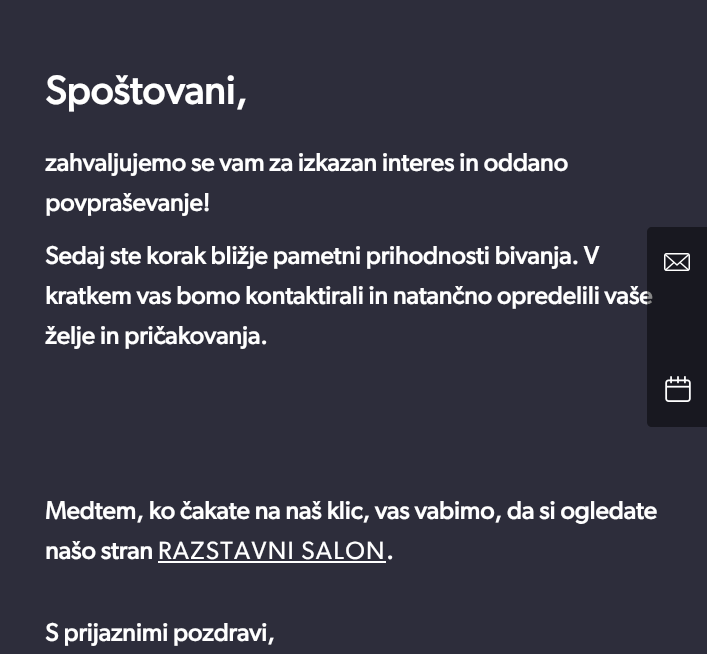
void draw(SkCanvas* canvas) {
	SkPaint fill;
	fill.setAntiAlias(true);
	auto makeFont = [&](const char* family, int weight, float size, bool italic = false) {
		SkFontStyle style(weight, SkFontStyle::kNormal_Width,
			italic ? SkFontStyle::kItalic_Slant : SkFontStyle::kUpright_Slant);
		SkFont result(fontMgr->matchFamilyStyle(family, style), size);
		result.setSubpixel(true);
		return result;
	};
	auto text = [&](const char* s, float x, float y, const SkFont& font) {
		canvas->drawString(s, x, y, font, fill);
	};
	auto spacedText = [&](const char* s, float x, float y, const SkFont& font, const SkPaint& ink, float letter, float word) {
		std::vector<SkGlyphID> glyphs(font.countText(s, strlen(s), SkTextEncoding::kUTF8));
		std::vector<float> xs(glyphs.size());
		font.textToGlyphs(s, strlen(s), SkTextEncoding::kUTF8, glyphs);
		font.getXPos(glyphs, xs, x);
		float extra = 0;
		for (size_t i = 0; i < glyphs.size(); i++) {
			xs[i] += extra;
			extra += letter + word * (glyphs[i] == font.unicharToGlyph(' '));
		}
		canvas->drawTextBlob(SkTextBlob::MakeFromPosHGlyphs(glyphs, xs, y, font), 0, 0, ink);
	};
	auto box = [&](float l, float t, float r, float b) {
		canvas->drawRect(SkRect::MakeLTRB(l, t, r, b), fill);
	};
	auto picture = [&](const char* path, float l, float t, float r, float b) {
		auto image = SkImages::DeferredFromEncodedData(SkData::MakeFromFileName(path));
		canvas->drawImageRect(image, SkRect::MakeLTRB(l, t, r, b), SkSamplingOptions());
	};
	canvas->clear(0xFF2D2D3B);
	fill.setColor(0xFFFFFFFF);
	box(158, 561, 386, 563);
	auto font1 = makeFont("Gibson", 700, 40);
	text("Spoštovani,", 45, 104, font1);
	auto font2 = makeFont("Gibson", 700, 25);
	text("zahvaljujemo se vam za izkazan interes in oddano", 45, 171, font2);
	text("povpraševanje!", 45, 211, font2);
	text("Sedaj ste korak bližje pametni prihodnosti bivanja. V", 45, 264, font2);
	text("kratkem vas bomo kontaktirali in natančno opredelili vaše", 45, 304, font2);
	text("želje in pričakovanja.", 45, 344, font2);
	text("Medtem, ko čakate na naš klic, vas vabimo, da si ogledate", 45, 519, font2);
	text("našo stran", 45, 559, font2);
	auto font3 = makeFont("Gibson", 400, 25);
	spacedText("RAZSTAVNI SALON", 158, 559, font3, fill, 1.25f, 0);
	text(".", 386, 559, font2);
	text("S prijaznimi pozdravi,", 45, 641, font2);
	fill.setColor(0x78000000);
	canvas->drawPath(SkPathBuilder().moveTo(652, 227).lineTo(707, 227).lineTo(707, 427).lineTo(652, 427).cubicTo(649, 427, 647, 425, 647, 422).lineTo(647, 232).cubicTo(647, 229, 649, 227, 652, 227).close().detach(), fill);
	picture("image0.png", 664, 253, 690, 271);
	picture("image1.png", 665, 376, 691, 402);
}
